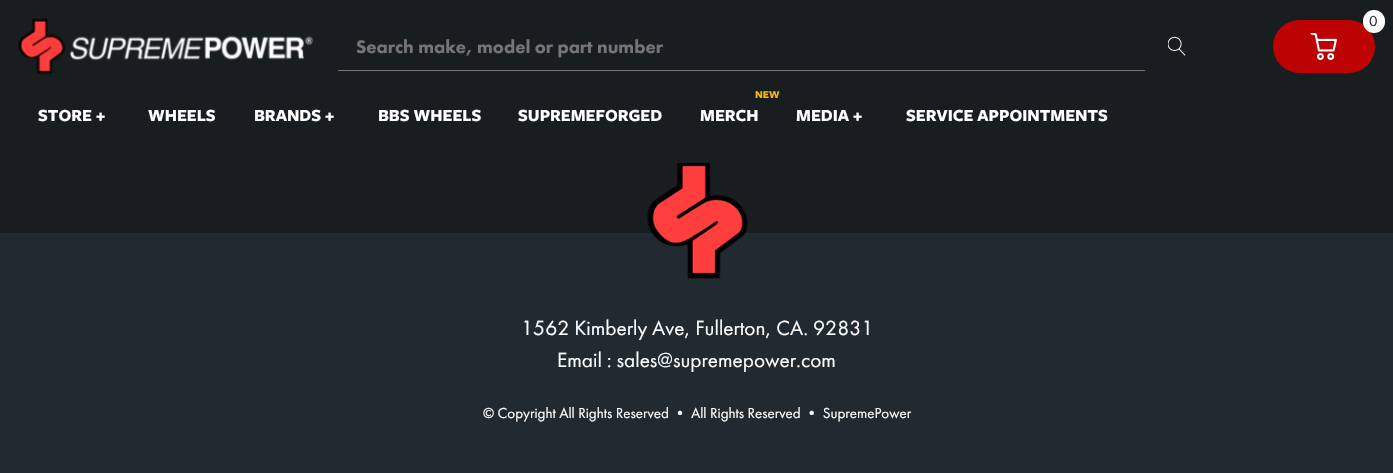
void draw(SkCanvas* canvas) {
	SkPaint fill;
	fill.setAntiAlias(true);
	auto makeFont = [&](const char* family, int weight, float size, bool italic = false) {
		SkFontStyle style(weight, SkFontStyle::kNormal_Width,
			italic ? SkFontStyle::kItalic_Slant : SkFontStyle::kUpright_Slant);
		SkFont result(fontMgr->matchFamilyStyle(family, style), size);
		result.setSubpixel(true);
		return result;
	};
	auto text = [&](const char* s, float x, float y, const SkFont& font) {
		canvas->drawString(s, x, y, font, fill);
	};
	auto box = [&](float l, float t, float r, float b) {
		canvas->drawRect(SkRect::MakeLTRB(l, t, r, b), fill);
	};
	auto roundBox = [&](float l, float t, float r, float b, float radius) {
		canvas->drawRoundRect(SkRect::MakeLTRB(l, t, r, b), radius, radius, fill);
	};
	auto picture = [&](const char* path, float l, float t, float r, float b) {
		auto image = SkImages::DeferredFromEncodedData(SkData::MakeFromFileName(path));
		canvas->drawImageRect(image, SkRect::MakeLTRB(l, t, r, b), SkSamplingOptions());
	};
	canvas->clear(0xFF212A31);
	fill.setColor(0xFF181D20);
	box(0, 0, 1393, 233);
	picture("image0.png", 18, 18, 313, 74);
	fill.setColor(0xFFBC0203);
	roundBox(1273, 20, 1375, 73, 26.5f);
	fill.setColor(0xFFFFFFFF);
	roundBox(1363, 10, 1385, 33, 11);
	picture("image1.png", 1310, 33, 1337, 60);
	fill.setColor(0xFF757575);
	box(338, 70, 1145, 71);
	picture("image2.png", 1168, 36, 1186, 56);
	picture("image3.png", 647, 163, 748, 279);
	auto font1 = makeFont("Futura PT", 400, 15);
	fill.setColor(0xFF212A31);
	text("0", 1369, 26, font1);
	auto font2 = makeFont("Futura PT", 900, 18.75f);
	fill.setColor(0xFF757575);
	text("Search make, model or part number", 356, 53, font2);
	auto font3 = makeFont("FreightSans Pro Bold", 700, 17.5f);
	fill.setColor(0xFFFFFFFF);
	text("STORE +", 38, 121, font3);
	text("WHEELS", 148, 121, font3);
	text("BRANDS +", 254, 121, font3);
	text("BBS WHEELS", 378, 121, font3);
	text("SUPREMEFORGED", 518, 121, font3);
	auto font4 = makeFont("FreightSans Pro Bold", 700, 11);
	fill.setColor(0xFFFFB800);
	text("NEW", 755, 98, font4);
	fill.setColor(0xFFFFFFFF);
	text("MERCH", 700, 121, font3);
	text("MEDIA +", 796, 121, font3);
	text("SERVICE APPOINTMENTS", 906, 121, font3);
	auto font5 = makeFont("Futura PT", 400, 21.25f);
	text("1562 Kimberly Ave, Fullerton, CA. 92831", 521, 335, font5);
	text("Email : sales@supremepower.com", 557, 367, font5);
	text("© Copyright All Rights Reserved • All Rights Reserved • SupremePower", 483, 418, font1);
}
